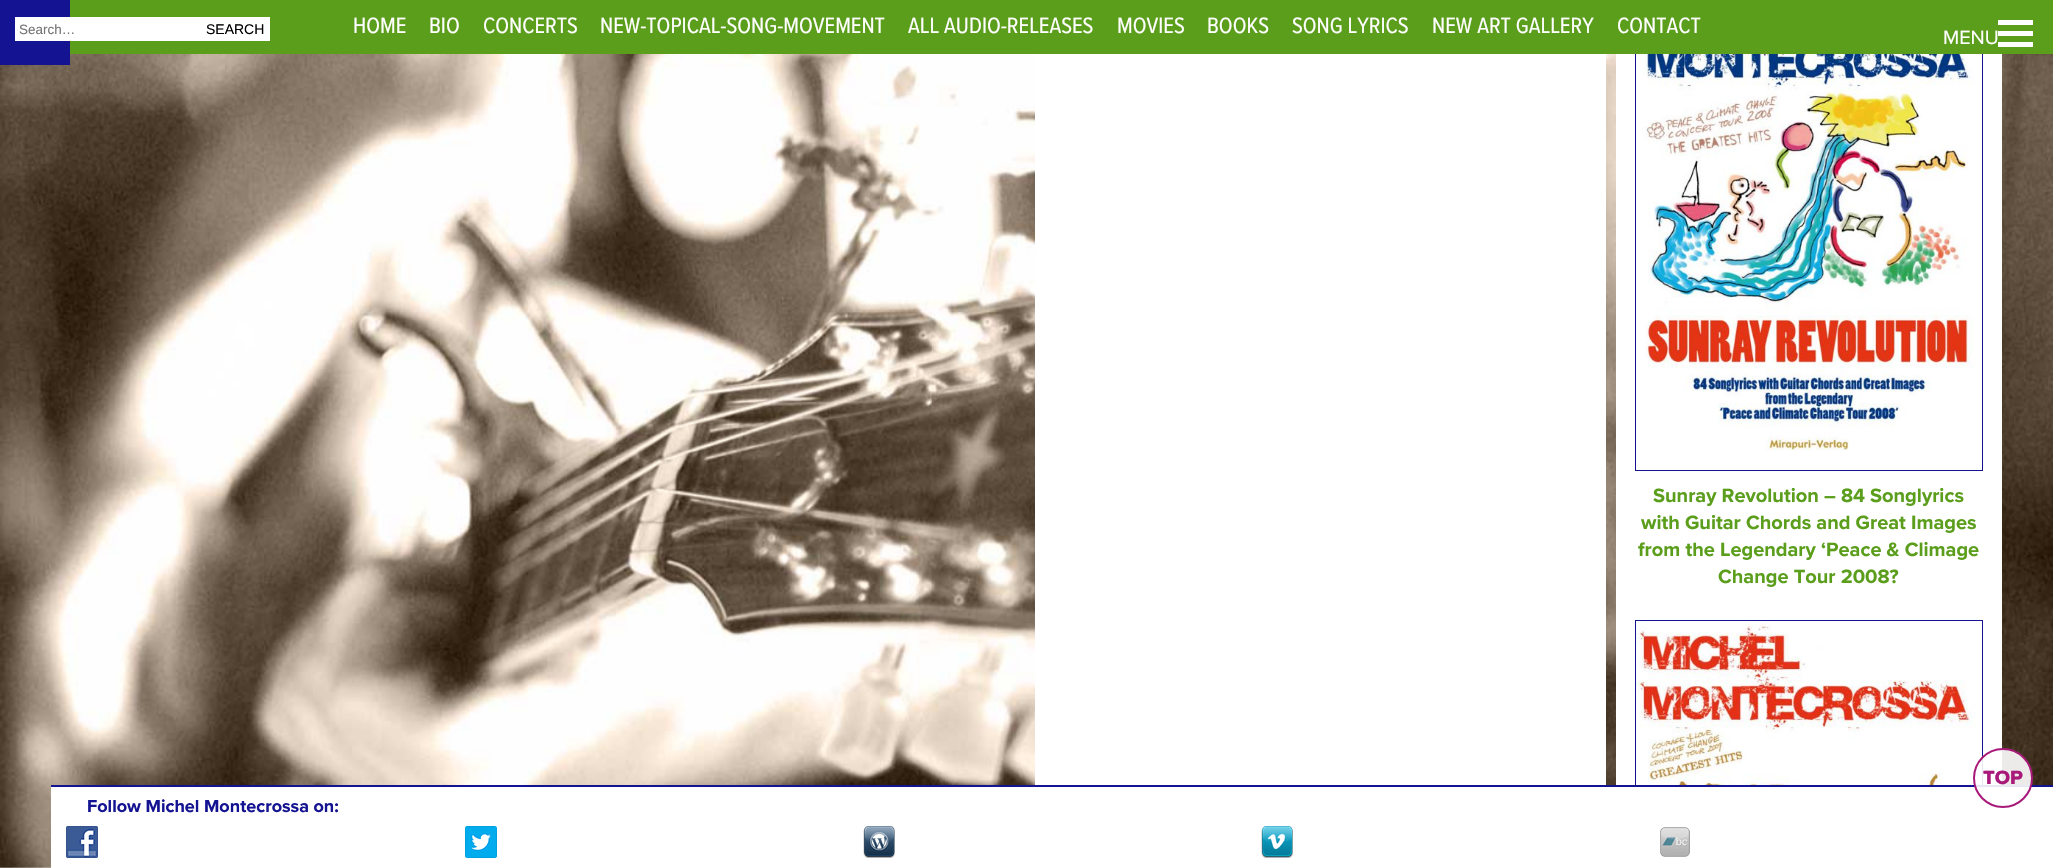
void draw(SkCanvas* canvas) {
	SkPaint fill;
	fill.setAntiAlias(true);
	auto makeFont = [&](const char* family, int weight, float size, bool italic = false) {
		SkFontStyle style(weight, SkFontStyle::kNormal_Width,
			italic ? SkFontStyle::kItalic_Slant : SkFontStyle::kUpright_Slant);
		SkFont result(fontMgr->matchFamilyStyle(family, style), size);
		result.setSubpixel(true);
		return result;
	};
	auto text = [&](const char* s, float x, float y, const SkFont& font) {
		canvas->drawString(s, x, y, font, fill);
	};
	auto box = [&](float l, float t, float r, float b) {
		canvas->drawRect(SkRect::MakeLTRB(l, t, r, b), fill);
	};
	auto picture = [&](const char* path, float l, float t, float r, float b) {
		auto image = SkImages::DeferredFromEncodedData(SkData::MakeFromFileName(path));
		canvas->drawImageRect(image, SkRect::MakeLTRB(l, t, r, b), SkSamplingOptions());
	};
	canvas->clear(0xFFFFFFFF);
	picture("image0.png", 0, 54, 2053, 868);
	fill.setColor(0xFFFFFFFF);
	box(1616, 54, 2002, 785);
	picture("image1.png", 1640, 54, 1975, 451);
	fill.setStyle(SkPaint::kStroke_Style);
	fill.setStrokeWidth(1);
	fill.setColor(0xFF141492);
	canvas->drawRect(SkRect::MakeLTRB(1635.5f, -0.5f, 1982.5f, 470.5f), fill);
	fill.setStyle(SkPaint::kFill_Style);
	fill.setColor(0xFF5B9E1C);
	box(70, 0, 2053, 54);
	fill.setColor(0xFFFFFFFF);
	box(1035, 54, 1606, 785);
	picture("image2.png", 1636, 621, 1977, 785);
	fill.setStyle(SkPaint::kStroke_Style);
	fill.setColor(0xFF141492);
	canvas->drawRect(SkRect::MakeLTRB(1635.5f, 620.5f, 1982.5f, 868.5f), fill);
	fill.setStyle(SkPaint::kFill_Style);
	fill.setColor(0xFFFFFFFF);
	box(51, 787, 2053, 868);
	fill.setColor(0xFF141492);
	box(51, 785, 2053, 787);
	fill.setColor(0xE6FFFFFF);
	canvas->drawCircle(2003, 778, 29, fill);
	fill.setStyle(SkPaint::kStroke_Style);
	fill.setStrokeWidth(2);
	fill.setColor(0xFFA91979);
	canvas->drawCircle(2003, 778, 29, fill);
	picture("image3.png", 66, 826, 98, 858);
	picture("image4.png", 465, 826, 497, 858);
	picture("image5.png", 863, 826, 895, 858);
	picture("image6.png", 1261, 826, 1293, 858);
	picture("image7.png", 1660, 827, 1690, 857);
	fill.setStyle(SkPaint::kFill_Style);
	fill.setColor(0xFF141492);
	box(0, 0, 70, 65);
	fill.setColor(0xFFFFFFFF);
	box(15, 17, 270, 41);
	box(1998, 20, 2033, 25);
	box(1998, 31, 2033, 36);
	box(1998, 42, 2033, 47);
	auto font1 = makeFont("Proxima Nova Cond", 400, 23);
	text("HOME", 353, 33, font1);
	text("BIO", 429, 33, font1);
	text("CONCERTS", 483, 33, font1);
	text("NEW-TOPICAL-SONG-MOVEMENT", 600, 33, font1);
	text("ALL AUDIO-RELEASES", 908, 33, font1);
	text("MOVIES", 1117, 33, font1);
	text("BOOKS", 1207, 33, font1);
	text("SONG LYRICS", 1292, 33, font1);
	text("NEW ART GALLERY", 1432, 33, font1);
	text("CONTACT", 1617, 33, font1);
	auto font2 = makeFont("Proxima Nova", 700, 20);
	fill.setColor(0xFF5B9E1C);
	text("Sunray Revolution – 84 Songlyrics", 1653, 502, font2);
	text("with Guitar Chords and Great Images", 1641, 529, font2);
	text("from the Legendary ‘Peace & Climage", 1638, 556, font2);
	text("Change Tour 2008?", 1718, 583, font2);
	auto font3 = makeFont("Proxima Nova", 800, 20);
	fill.setColor(0xFFA91979);
	text("TOP", 1983, 784, font3);
	auto font4 = makeFont("Proxima Nova", 700, 18);
	fill.setColor(0xFF141492);
	text("Follow Michel Montecrossa on:", 87, 812, font4);
	auto font5 = makeFont("Liberation Sans", 400, 13.5f);
	fill.setColor(0xFF757575);
	text("Search…", 19, 34, font5);
	auto font6 = makeFont("Liberation Sans", 400, 14);
	fill.setColor(0xFF000000);
	text("SEARCH", 206, 34, font6);
	auto font7 = makeFont("Proxima Nova", 400, 20);
	fill.setColor(0xFFFFFFFF);
	text("MENU", 1943, 44, font7);
}
